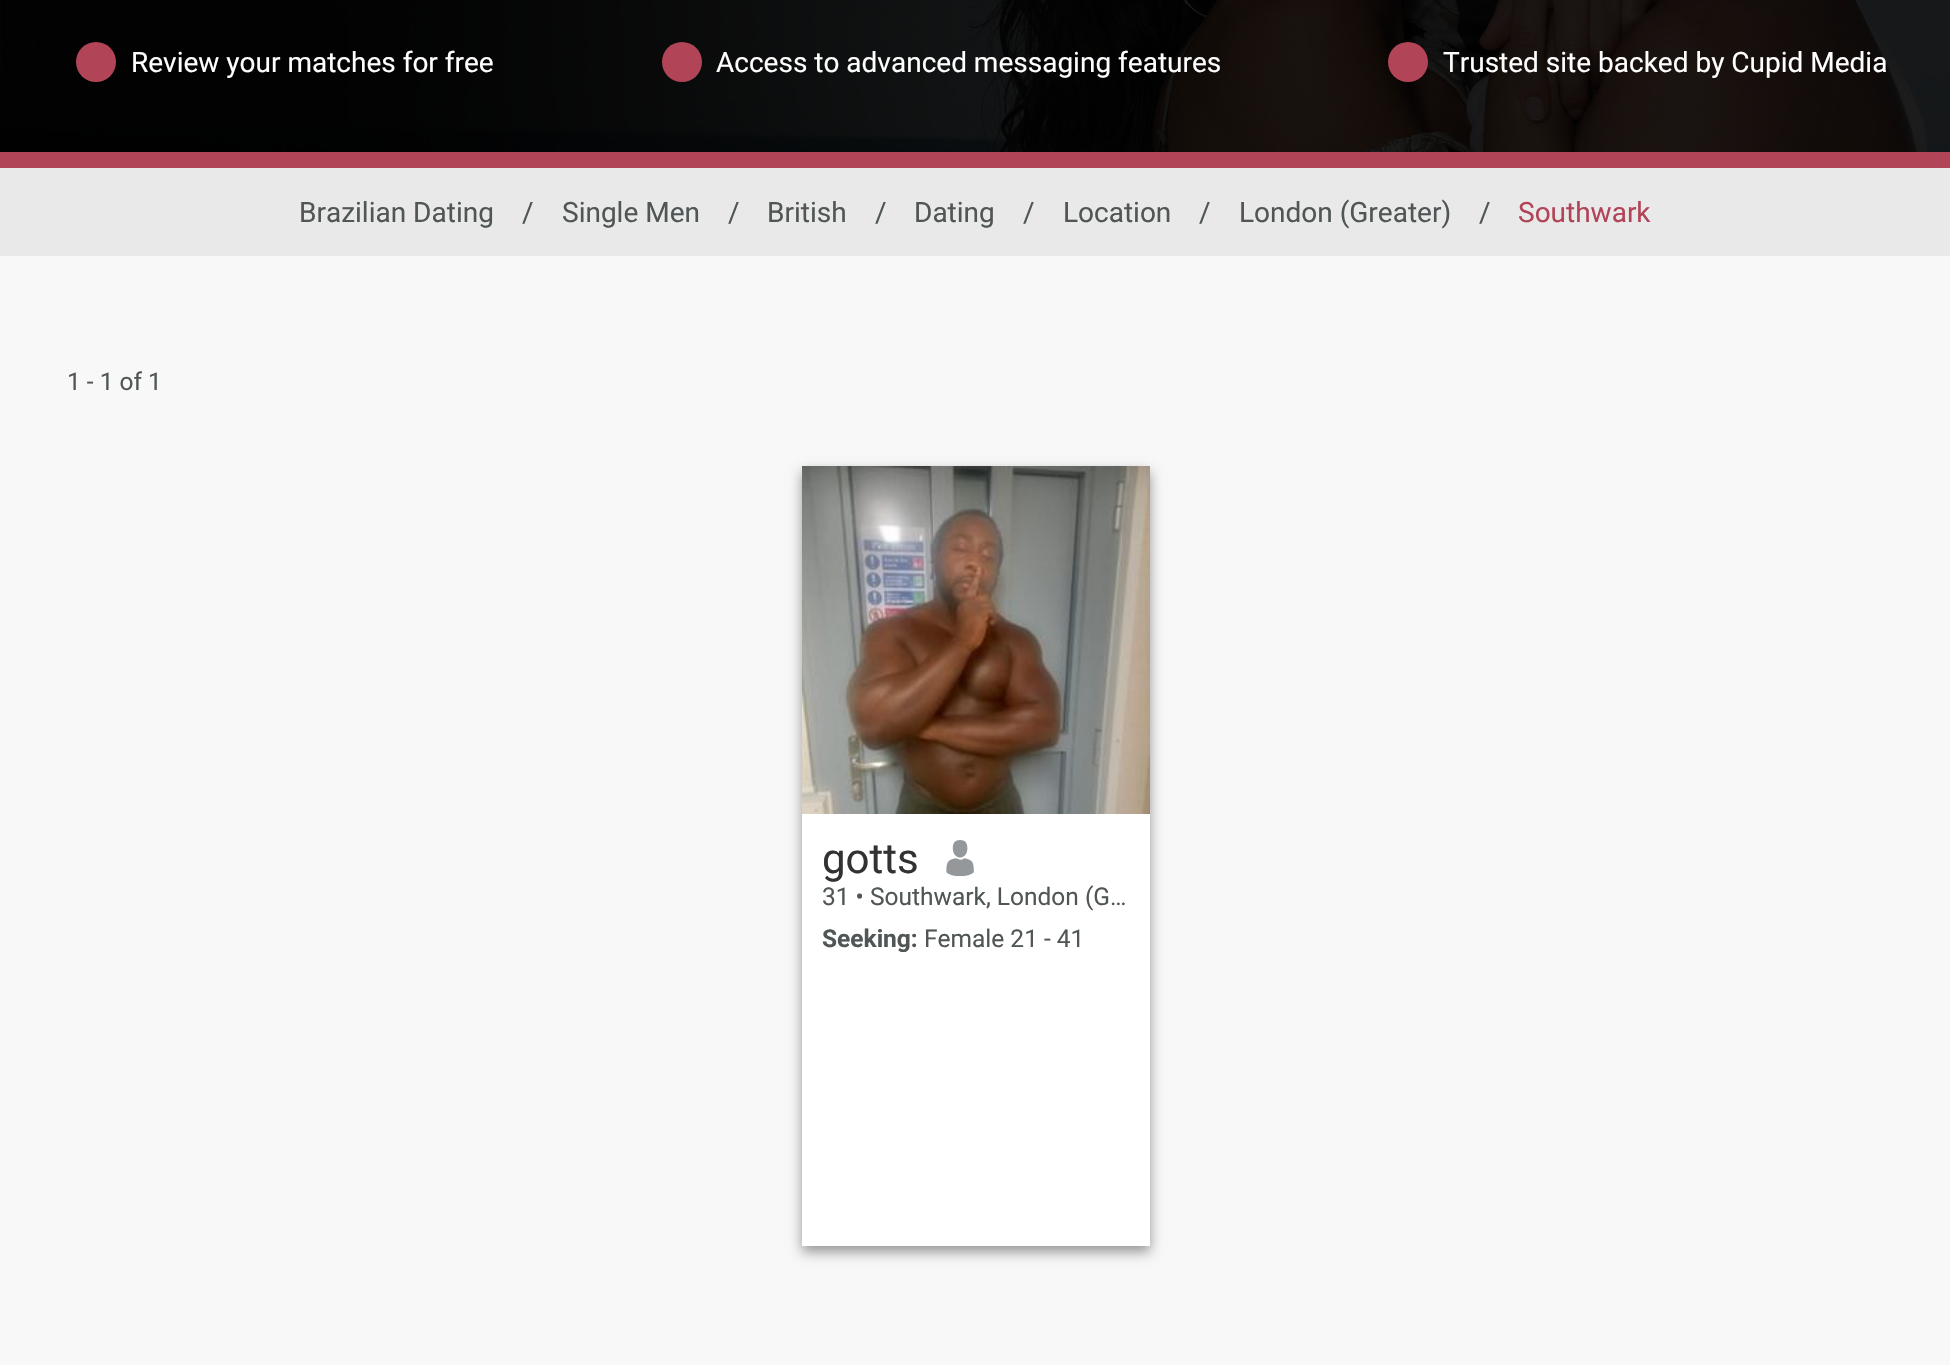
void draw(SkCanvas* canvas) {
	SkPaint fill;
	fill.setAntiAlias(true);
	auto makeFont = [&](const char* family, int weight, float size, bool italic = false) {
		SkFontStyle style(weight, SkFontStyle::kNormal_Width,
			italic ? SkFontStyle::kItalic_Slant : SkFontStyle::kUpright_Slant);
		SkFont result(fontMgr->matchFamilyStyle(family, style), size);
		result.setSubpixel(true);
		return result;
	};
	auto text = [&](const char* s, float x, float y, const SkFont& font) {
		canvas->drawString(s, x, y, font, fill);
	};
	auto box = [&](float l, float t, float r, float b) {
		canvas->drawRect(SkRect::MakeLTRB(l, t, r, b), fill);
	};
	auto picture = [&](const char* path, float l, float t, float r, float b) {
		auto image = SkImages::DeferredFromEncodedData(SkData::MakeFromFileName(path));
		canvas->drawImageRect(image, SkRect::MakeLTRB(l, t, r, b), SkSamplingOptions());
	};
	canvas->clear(0xFFF8F8F8);
	picture("image0.png", 0, 0, 1950, 152);
	fill.setColor(0xFFB14457);
	canvas->drawCircle(96, 62, 20, fill);
	canvas->drawCircle(682, 62, 20, fill);
	canvas->drawCircle(1408, 62, 20, fill);
	box(0, 152, 1950, 168);
	fill.setColor(0xFFE9E9E9);
	box(0, 168, 1950, 256);
	fill.setColor(0x66000000);
	fill.setMaskFilter(SkMaskFilter::MakeBlur(kNormal_SkBlurStyle, 6));
	canvas->drawRect(SkRect::MakeLTRB(802, 472, 1150, 1252), fill);
	fill.setMaskFilter(nullptr);
	fill.setColor(0xFFFFFFFF);
	box(802, 814, 1150, 1246);
	picture("image1.png", 802, 466, 1150, 814);
	picture("image2.png", 946, 840, 974, 876);
	auto font1 = makeFont("Roboto", 400, 28);
	text("Review your matches for free", 131, 72, font1);
	text("Access to advanced messaging features", 716, 72, font1);
	text("Trusted site backed by Cupid Media", 1443, 72, font1);
	fill.setColor(0xFF505656);
	text("Brazilian Dating", 299, 222, font1);
	text("/", 522, 222, font1);
	text("Single Men", 562, 222, font1);
	text("/", 728, 222, font1);
	text("British", 767, 222, font1);
	text("/", 875, 222, font1);
	text("Dating", 914, 222, font1);
	text("/", 1023, 222, font1);
	text("Location", 1063, 222, font1);
	text("/", 1199, 222, font1);
	text("London (Greater)", 1239, 222, font1);
	text("/", 1479, 222, font1);
	fill.setColor(0xFFB14457);
	text("Southwark", 1518, 222, font1);
	auto font2 = makeFont("Roboto", 400, 24.5f);
	fill.setColor(0xFF505656);
	text("1 - 1 of 1", 67, 390, font2);
	auto font3 = makeFont("Roboto", 400, 42);
	fill.setColor(0xFF323232);
	text("gotts", 822, 873, font3);
	fill.setColor(0xFF505656);
	text("31 • Southwark, London (G…", 822, 905, font2);
	auto font4 = makeFont("Roboto", 700, 24.5f);
	text("Seeking:", 822, 947, font4);
	text("Female 21 - 41", 924, 947, font2);
}
